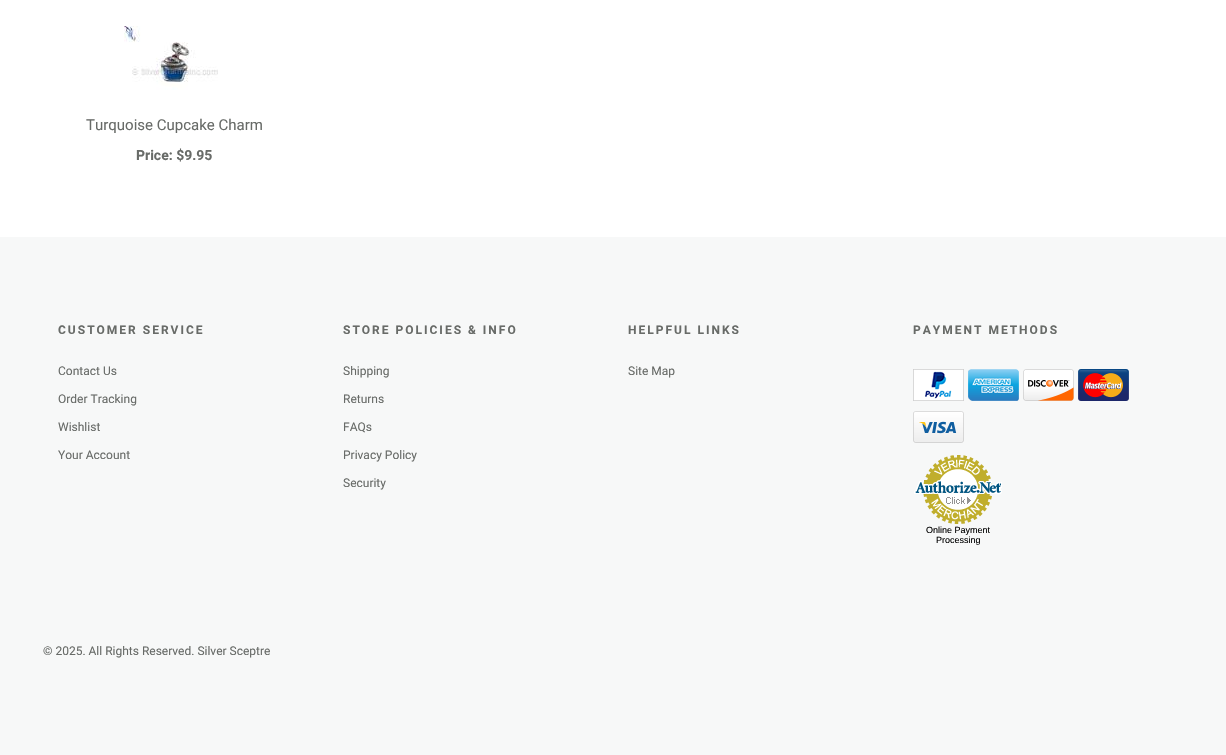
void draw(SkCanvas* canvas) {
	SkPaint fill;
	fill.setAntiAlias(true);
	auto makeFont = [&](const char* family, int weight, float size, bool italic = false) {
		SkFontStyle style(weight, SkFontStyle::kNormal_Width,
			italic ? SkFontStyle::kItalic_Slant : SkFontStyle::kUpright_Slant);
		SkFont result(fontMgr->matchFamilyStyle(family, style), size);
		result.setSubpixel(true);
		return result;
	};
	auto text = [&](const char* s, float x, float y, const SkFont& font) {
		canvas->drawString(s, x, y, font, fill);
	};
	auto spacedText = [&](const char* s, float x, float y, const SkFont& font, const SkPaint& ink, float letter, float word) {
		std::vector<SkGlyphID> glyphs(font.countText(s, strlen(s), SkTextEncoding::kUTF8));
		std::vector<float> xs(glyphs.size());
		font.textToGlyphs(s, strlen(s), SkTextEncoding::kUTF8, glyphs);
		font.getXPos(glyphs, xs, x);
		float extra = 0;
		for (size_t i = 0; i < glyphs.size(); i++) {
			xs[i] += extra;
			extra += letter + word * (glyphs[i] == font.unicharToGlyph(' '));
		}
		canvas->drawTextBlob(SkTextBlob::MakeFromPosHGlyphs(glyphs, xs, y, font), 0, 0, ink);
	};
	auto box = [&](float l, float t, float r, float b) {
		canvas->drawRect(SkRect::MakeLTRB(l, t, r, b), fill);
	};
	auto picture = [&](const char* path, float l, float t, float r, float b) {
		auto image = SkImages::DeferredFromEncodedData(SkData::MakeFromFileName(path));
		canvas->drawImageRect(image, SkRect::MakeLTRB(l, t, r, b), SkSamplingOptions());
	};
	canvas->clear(0xFFFFFFFF);
	picture("image0.png", 124, 26, 218, 90);
	fill.setColor(0xFFF7F8F8);
	box(0, 237, 1226, 755);
	picture("image1.png", 913, 369, 964, 401);
	picture("image2.png", 968, 369, 1019, 401);
	picture("image3.png", 1023, 369, 1074, 401);
	picture("image4.png", 1078, 369, 1129, 401);
	picture("image5.png", 913, 411, 964, 443);
	picture("image6.png", 914, 455, 1002, 524);
	auto font1 = makeFont("Roboto", 400, 15);
	fill.setColor(0xFF686B68);
	text("Turquoise Cupcake Charm", 86, 130, font1);
	auto font2 = makeFont("Roboto", 700, 14);
	text("Price: $9.95", 136, 160, font2);
	auto font3 = makeFont("Roboto", 700, 12);
	spacedText("CUSTOMER SERVICE", 58, 334, font3, fill, 2, 0);
	auto font4 = makeFont("Roboto", 400, 12);
	text("Contact Us", 58, 375, font4);
	text("Order Tracking", 58, 403, font4);
	text("Wishlist", 58, 431, font4);
	text("Your Account", 58, 459, font4);
	spacedText("STORE POLICIES & INFO", 343, 334, font3, fill, 2, 0);
	text("Shipping", 343, 375, font4);
	text("Returns", 343, 403, font4);
	text("FAQs", 343, 431, font4);
	text("Privacy Policy", 343, 459, font4);
	text("Security", 343, 487, font4);
	spacedText("HELPFUL LINKS", 628, 334, font3, fill, 2, 0);
	text("Site Map", 628, 375, font4);
	spacedText("PAYMENT METHODS", 913, 334, font3, fill, 2, 0);
	auto font5 = makeFont("Liberation Sans", 400, 9);
	fill.setColor(0xFF000000);
	text("Online Payment", 926, 533, font5);
	text("Processing", 936, 543, font5);
	fill.setColor(0xFF686B68);
	text("© 2025. All Rights Reserved. Silver Sceptre", 43, 655, font4);
}
